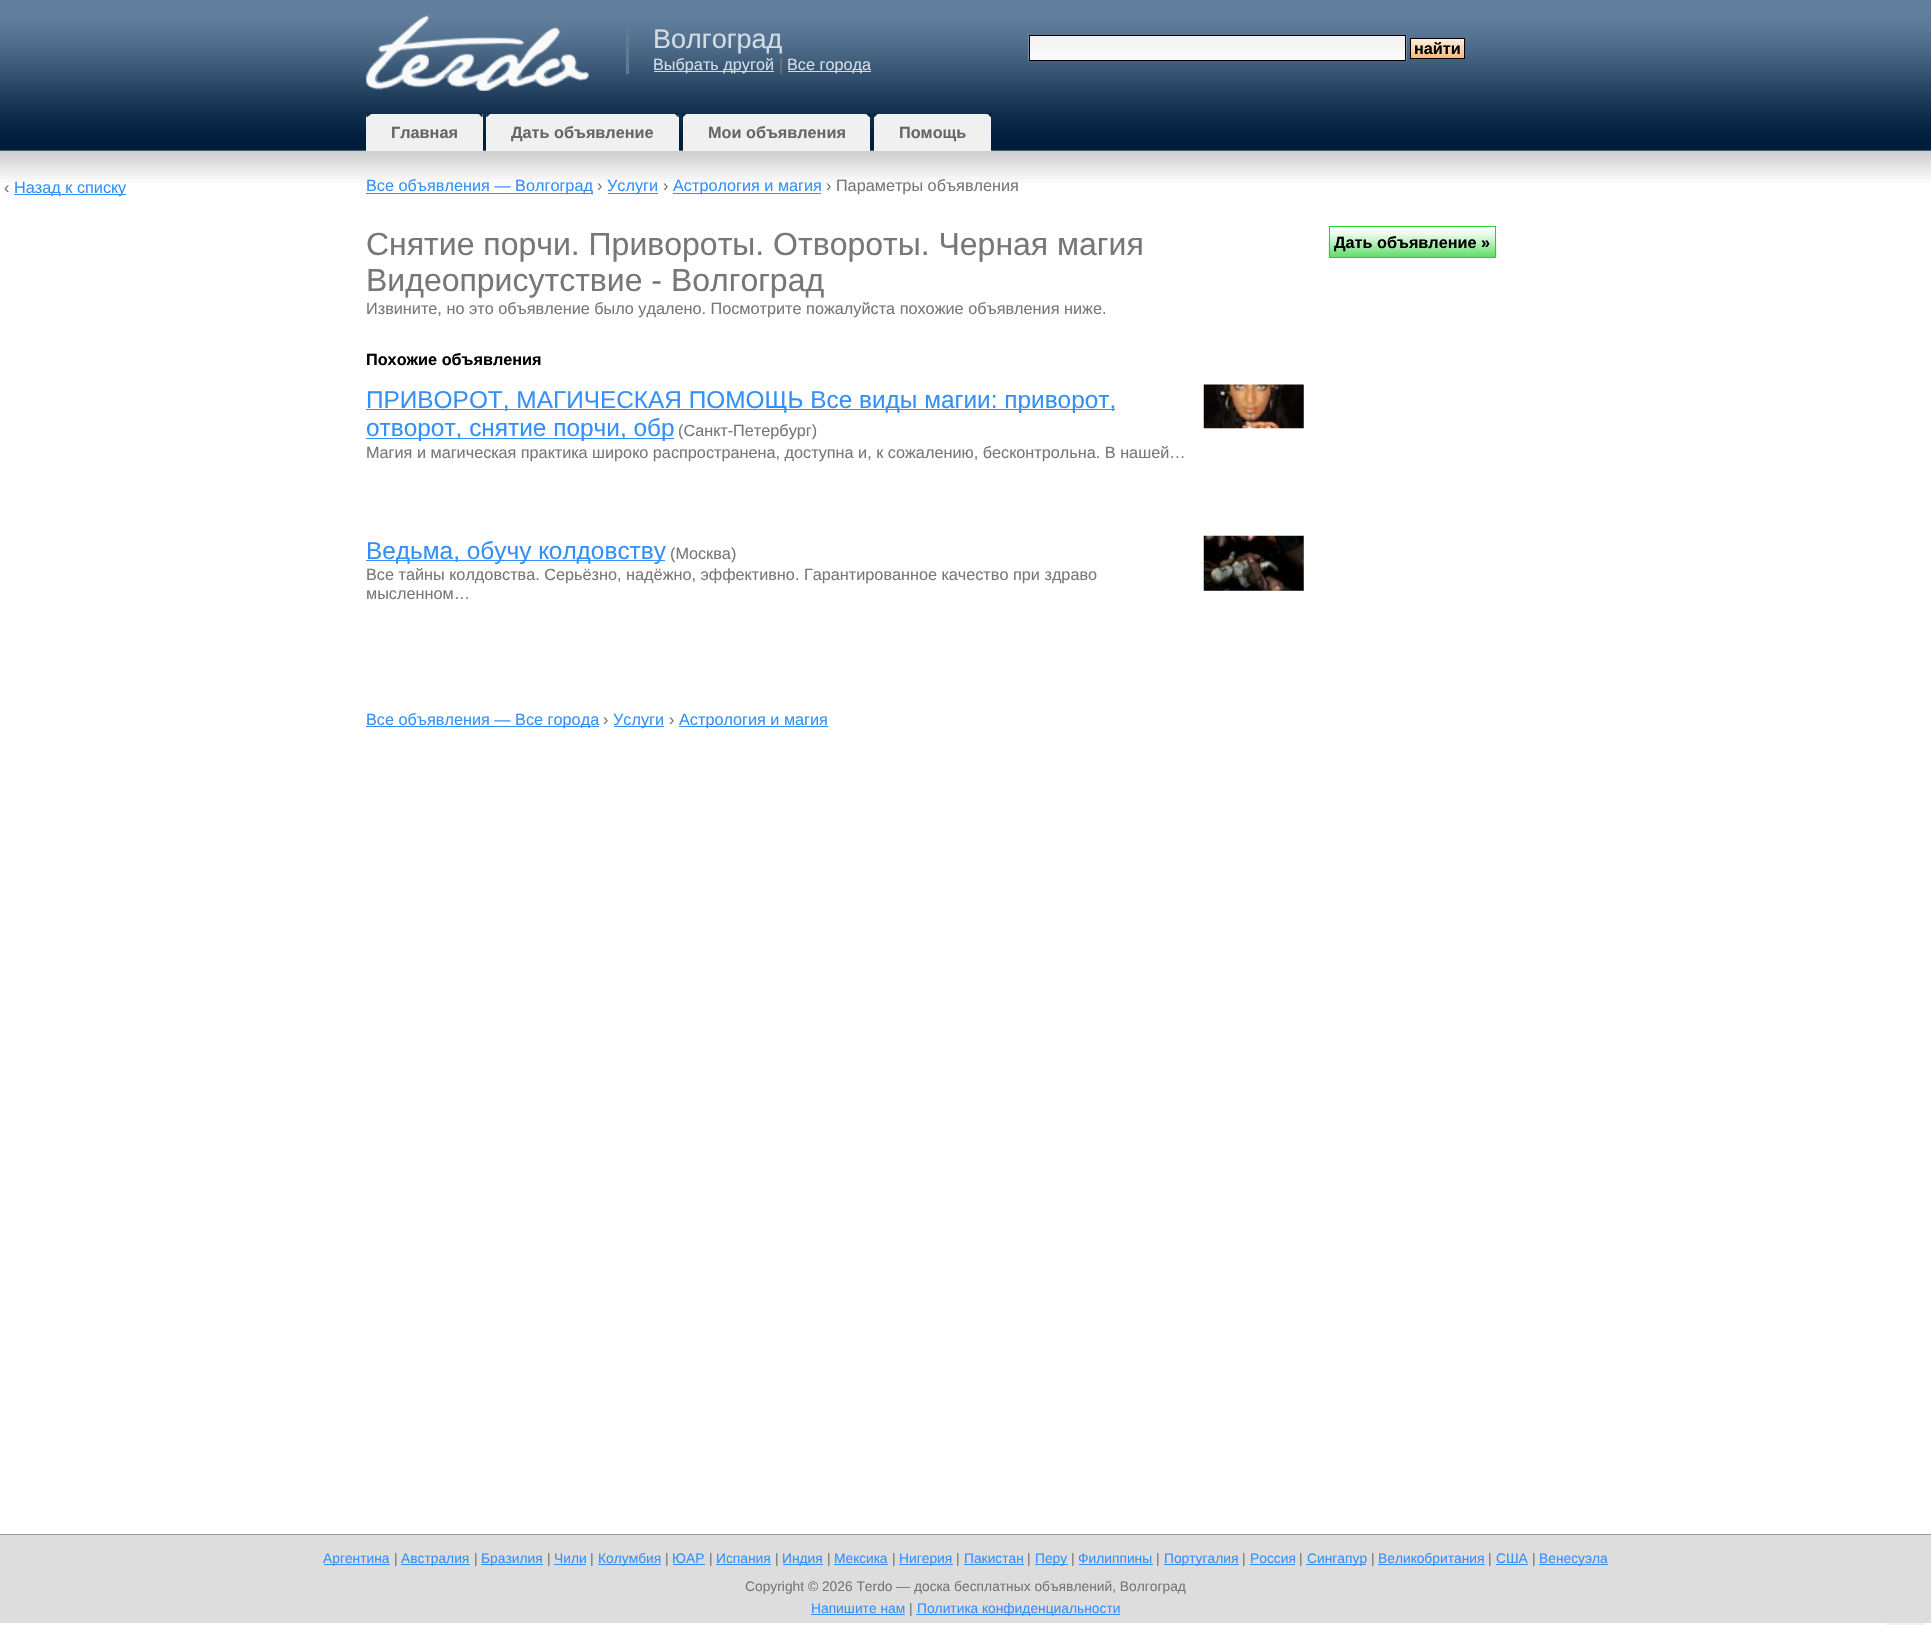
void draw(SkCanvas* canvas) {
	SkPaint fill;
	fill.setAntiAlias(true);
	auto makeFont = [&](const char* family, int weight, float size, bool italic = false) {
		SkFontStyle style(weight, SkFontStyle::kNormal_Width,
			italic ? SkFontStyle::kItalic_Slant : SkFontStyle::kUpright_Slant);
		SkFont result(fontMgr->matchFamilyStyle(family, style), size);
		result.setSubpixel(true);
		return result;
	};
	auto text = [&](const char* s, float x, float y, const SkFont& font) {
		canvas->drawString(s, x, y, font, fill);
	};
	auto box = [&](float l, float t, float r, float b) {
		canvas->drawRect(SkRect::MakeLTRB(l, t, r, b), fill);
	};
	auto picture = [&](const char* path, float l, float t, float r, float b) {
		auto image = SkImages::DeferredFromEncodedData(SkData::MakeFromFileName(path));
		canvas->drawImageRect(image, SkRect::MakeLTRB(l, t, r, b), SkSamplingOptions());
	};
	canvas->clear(0xFFFFFFFF);
	fill.setColor(0xFFF1F1F1);
	box(1886, 1623, 1925, 1625);
	picture("image0.png", 0, 0, 1931, 183);
	picture("image1.png", 366, 15, 589, 91);
	fill.setColor(0xFF5E7A96);
	box(626, 23, 629, 74);
	fill.setColor(0xFFD4DCE3);
	box(654, 71, 774, 72);
	box(788, 71, 871, 72);
	picture("image2.png", 1028, 35, 1407, 61);
	fill.setStyle(SkPaint::kStroke_Style);
	fill.setStrokeWidth(1);
	fill.setColor(0xFF000000);
	canvas->drawRect(SkRect::MakeLTRB(1029.5f, 35.5f, 1405.5f, 60.5f), fill);
	picture("image3.png", 1411, 39, 1464, 58);
	canvas->drawRect(SkRect::MakeLTRB(1410.5f, 38.5f, 1464.5f, 58.5f), fill);
	fill.setStyle(SkPaint::kFill_Style);
	fill.setColor(0xFFF0F0F0);
	box(366, 114, 483, 151);
	picture("image4.png", 366, 113, 372, 117);
	picture("image5.png", 478, 113, 483, 117);
	box(486, 114, 679, 151);
	picture("image6.png", 486, 113, 490, 117);
	picture("image7.png", 675, 113, 679, 117);
	box(683, 114, 870, 151);
	picture("image8.png", 682, 113, 687, 117);
	picture("image9.png", 866, 113, 870, 117);
	box(874, 114, 991, 151);
	picture("image10.png", 873, 113, 878, 117);
	picture("image11.png", 987, 113, 992, 117);
	fill.setColor(0xFF3490F8);
	box(366, 193, 593, 194);
	box(608, 193, 658, 194);
	box(673, 193, 821, 194);
	box(14, 194, 126, 195);
	box(366, 409, 1115, 410);
	picture("image12.png", 1203, 384, 1304, 429);
	box(366, 438, 674, 439);
	box(366, 560, 665, 561);
	picture("image13.png", 1203, 535, 1304, 591);
	box(366, 726, 599, 727);
	box(614, 726, 664, 727);
	box(679, 726, 828, 727);
	picture("image14.png", 1328, 227, 1497, 257);
	fill.setStyle(SkPaint::kStroke_Style);
	fill.setColor(0xFF23D030);
	canvas->drawRect(SkRect::MakeLTRB(1329.5f, 226.5f, 1495.5f, 257.5f), fill);
	fill.setStyle(SkPaint::kFill_Style);
	fill.setColor(0xFFDDDDDD);
	box(0, 1535, 1931, 1623);
	fill.setColor(0xFF999999);
	box(0, 1534, 1931, 1535);
	fill.setColor(0xFF3490F8);
	box(324, 1564, 390, 1565);
	box(401, 1564, 470, 1565);
	box(481, 1564, 543, 1565);
	box(554, 1564, 586, 1565);
	box(598, 1564, 661, 1565);
	box(673, 1564, 705, 1565);
	box(716, 1564, 771, 1565);
	box(783, 1564, 823, 1565);
	box(834, 1564, 888, 1565);
	box(899, 1564, 953, 1565);
	box(964, 1564, 1024, 1565);
	box(1035, 1564, 1068, 1565);
	box(1079, 1564, 1153, 1565);
	box(1164, 1564, 1239, 1565);
	box(1250, 1564, 1295, 1565);
	box(1306, 1564, 1366, 1565);
	box(1378, 1564, 1485, 1565);
	box(1496, 1564, 1528, 1565);
	box(1539, 1564, 1608, 1565);
	box(811, 1614, 905, 1615);
	box(916, 1614, 1120, 1615);
	auto font1 = makeFont("Liberation Sans", 400, 27);
	fill.setColor(0xFFD4DCE3);
	text("Волгоград", 653, 48, font1);
	auto font2 = makeFont("Liberation Sans", 400, 16.25f);
	text("Выбрать другой", 653, 70, font2);
	fill.setColor(0xFF777777);
	text("|", 779, 70, font2);
	fill.setColor(0xFFD4DCE3);
	text("Все города", 787, 70, font2);
	auto font3 = makeFont("Liberation Sans", 700, 16.25f);
	fill.setColor(0xFF000000);
	text("найти", 1414, 54, font3);
	fill.setColor(0xFF666666);
	text("Главная", 391, 138, font3);
	text("Дать объявление", 511, 138, font3);
	text("Мои объявления", 708, 138, font3);
	text("Помощь", 899, 138, font3);
	fill.setColor(0xFF3490F8);
	text("Все объявления — Волгоград", 366, 191, font2);
	fill.setColor(0xFF777777);
	text("›", 597, 191, font2);
	fill.setColor(0xFF3490F8);
	text("Услуги", 607, 191, font2);
	fill.setColor(0xFF777777);
	text("›", 663, 191, font2);
	fill.setColor(0xFF3490F8);
	text("Астрология и магия", 673, 191, font2);
	fill.setColor(0xFF777777);
	text("› Параметры объявления", 826, 191, font2);
	text("‹", 4, 193, font2);
	fill.setColor(0xFF3490F8);
	text("Назад к списку", 14, 193, font2);
	auto font4 = makeFont("Liberation Sans", 400, 32);
	fill.setColor(0xFF777777);
	text("Снятие порчи. Привороты. Отвороты. Черная магия", 366, 255, font4);
	text("Видеоприсутствие - Волгоград", 366, 291, font4);
	text("Извините, но это объявление было удалено. Посмотрите пожалуйста похожие объявления ниже.", 366, 314, font2);
	fill.setColor(0xFF000000);
	text("Похожие объявления", 366, 365, font3);
	auto font5 = makeFont("Liberation Sans", 400, 24.4f);
	fill.setColor(0xFF3490F8);
	text("ПРИВОРОТ, МАГИЧЕСКАЯ ПОМОЩЬ Все виды магии: приворот,", 366, 408, font5);
	text("отворот, снятие порчи, обр", 366, 436, font5);
	fill.setColor(0xFF777777);
	text("(Санкт-Петербург)", 678, 436, font2);
	text("Магия и магическая практика широко распространена, доступна и, к сожалению, бесконтрольна. В нашей…", 366, 458, font2);
	fill.setColor(0xFF3490F8);
	text("Ведьма, обучу колдовству", 366, 559, font5);
	fill.setColor(0xFF777777);
	text("(Москва)", 670, 559, font2);
	text("Все тайны колдовства. Серьёзно, надёжно, эффективно. Гарантированное качество при здраво", 366, 580, font2);
	text("мысленном…", 366, 599, font2);
	fill.setColor(0xFF3490F8);
	text("Все объявления — Все города", 366, 725, font2);
	fill.setColor(0xFF777777);
	text("›", 603, 725, font2);
	fill.setColor(0xFF3490F8);
	text("Услуги", 613, 725, font2);
	fill.setColor(0xFF777777);
	text("›", 669, 725, font2);
	fill.setColor(0xFF3490F8);
	text("Астрология и магия", 679, 725, font2);
	fill.setColor(0xFF000000);
	text("Дать объявление »", 1334, 248, font3);
	auto font6 = makeFont("Liberation Sans", 400, 13.8f);
	fill.setColor(0xFF3490F8);
	text("Аргентина", 323, 1563, font6);
	fill.setColor(0xFF777777);
	text("|", 394, 1563, font6);
	fill.setColor(0xFF3490F8);
	text("Австралия", 401, 1563, font6);
	fill.setColor(0xFF777777);
	text("|", 474, 1563, font6);
	fill.setColor(0xFF3490F8);
	text("Бразилия", 481, 1563, font6);
	fill.setColor(0xFF777777);
	text("|", 547, 1563, font6);
	fill.setColor(0xFF3490F8);
	text("Чили", 554, 1563, font6);
	fill.setColor(0xFF777777);
	text("|", 590, 1563, font6);
	fill.setColor(0xFF3490F8);
	text("Колумбия", 598, 1563, font6);
	fill.setColor(0xFF777777);
	text("|", 665, 1563, font6);
	fill.setColor(0xFF3490F8);
	text("ЮАР", 672, 1563, font6);
	fill.setColor(0xFF777777);
	text("|", 709, 1563, font6);
	fill.setColor(0xFF3490F8);
	text("Испания", 716, 1563, font6);
	fill.setColor(0xFF777777);
	text("|", 775, 1563, font6);
	fill.setColor(0xFF3490F8);
	text("Индия", 782, 1563, font6);
	fill.setColor(0xFF777777);
	text("|", 827, 1563, font6);
	fill.setColor(0xFF3490F8);
	text("Мексика", 834, 1563, font6);
	fill.setColor(0xFF777777);
	text("|", 892, 1563, font6);
	fill.setColor(0xFF3490F8);
	text("Нигерия", 899, 1563, font6);
	fill.setColor(0xFF777777);
	text("|", 956, 1563, font6);
	fill.setColor(0xFF3490F8);
	text("Пакистан", 964, 1563, font6);
	fill.setColor(0xFF777777);
	text("|", 1027, 1563, font6);
	fill.setColor(0xFF3490F8);
	text("Перу", 1035, 1563, font6);
	fill.setColor(0xFF777777);
	text("|", 1071, 1563, font6);
	fill.setColor(0xFF3490F8);
	text("Филиппины", 1078, 1563, font6);
	fill.setColor(0xFF777777);
	text("|", 1156, 1563, font6);
	fill.setColor(0xFF3490F8);
	text("Португалия", 1164, 1563, font6);
	fill.setColor(0xFF777777);
	text("|", 1242, 1563, font6);
	fill.setColor(0xFF3490F8);
	text("Россия", 1250, 1563, font6);
	fill.setColor(0xFF777777);
	text("|", 1299, 1563, font6);
	fill.setColor(0xFF3490F8);
	text("Сингапур", 1307, 1563, font6);
	fill.setColor(0xFF777777);
	text("|", 1371, 1563, font6);
	fill.setColor(0xFF3490F8);
	text("Великобритания", 1378, 1563, font6);
	fill.setColor(0xFF777777);
	text("|", 1488, 1563, font6);
	fill.setColor(0xFF3490F8);
	text("США", 1496, 1563, font6);
	fill.setColor(0xFF777777);
	text("|", 1532, 1563, font6);
	fill.setColor(0xFF3490F8);
	text("Венесуэла", 1539, 1563, font6);
	fill.setColor(0xFF777777);
	text("Copyright © 2026 Terdo — доска бесплатных объявлений, Волгоград", 745, 1591, font6);
	fill.setColor(0xFF3490F8);
	text("Напишите нам", 811, 1613, font6);
	fill.setColor(0xFF777777);
	text("|", 909, 1613, font6);
	fill.setColor(0xFF3490F8);
	text("Политика конфиденциальности", 917, 1613, font6);
}
